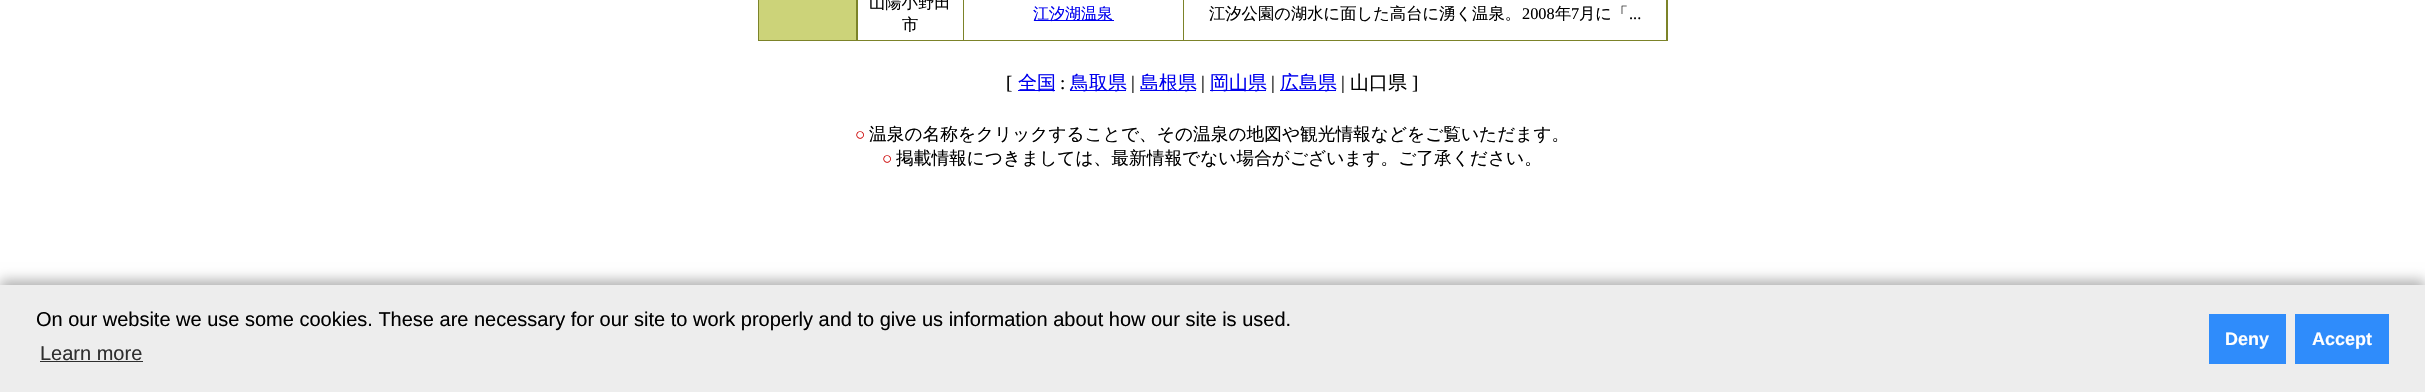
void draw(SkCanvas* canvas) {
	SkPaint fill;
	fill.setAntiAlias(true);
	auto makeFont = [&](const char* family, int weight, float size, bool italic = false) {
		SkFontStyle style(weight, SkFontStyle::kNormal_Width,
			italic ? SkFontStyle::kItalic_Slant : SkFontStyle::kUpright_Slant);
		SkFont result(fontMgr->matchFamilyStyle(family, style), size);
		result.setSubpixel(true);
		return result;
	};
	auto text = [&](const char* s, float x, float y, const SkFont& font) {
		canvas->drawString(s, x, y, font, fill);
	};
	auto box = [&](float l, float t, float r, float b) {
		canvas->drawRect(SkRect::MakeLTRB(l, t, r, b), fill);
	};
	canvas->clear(0xFFFFFFFF);
	fill.setColor(0xFF7C8329);
	box(758, 0, 1668, 41);
	fill.setColor(0xFFCCD379);
	box(759, 0, 856, 40);
	fill.setColor(0xFFFFFFFF);
	box(858, 0, 963, 40);
	box(964, 0, 1183, 40);
	fill.setColor(0xFF0000EE);
	box(1034, 20, 1114, 21);
	fill.setColor(0xFFFFFFFF);
	box(1184, 0, 1666, 40);
	fill.setColor(0xFF0000EE);
	box(1018, 90, 1055, 91);
	box(1070, 90, 1126, 91);
	box(1140, 90, 1196, 91);
	box(1210, 90, 1266, 91);
	box(1280, 90, 1336, 91);
	fill.setColor(0x4D000000);
	fill.setMaskFilter(SkMaskFilter::MakeBlur(kNormal_SkBlurStyle, 6));
	canvas->drawRect(SkRect::MakeLTRB(0, 280, 2425, 388), fill);
	fill.setMaskFilter(nullptr);
	fill.setColor(0xFFEDEDED);
	box(0, 285, 2425, 392);
	fill.setColor(0xFF2F2F2F);
	box(40, 361, 143, 362);
	fill.setColor(0xFF2F8CFB);
	box(2209, 314, 2286, 364);
	box(2295, 314, 2389, 364);
	auto font1 = makeFont("WenQuanYi Zen Hei", 500, 16.3f);
	fill.setColor(0xFF000000);
	text("山陽小野田", 869, 8, font1);
	text("市", 902, 30, font1);
	auto font2 = makeFont("WenQuanYi Zen Hei", 500, 16);
	fill.setColor(0xFF0000EE);
	text("江汐湖温泉", 1033, 19, font2);
	fill.setColor(0xFF000000);
	text("江汐公園の湖水に面した高台に湧く温泉。", 1209, 19, font1);
	auto font3 = makeFont("Liberation Serif", 400, 16.3f);
	text("2008", 1522, 19, font3);
	text("年", 1555, 19, font1);
	text("7", 1571, 19, font3);
	text("月に「", 1579, 19, font1);
	text("...", 1629, 19, font3);
	auto font4 = makeFont("Liberation Serif", 400, 19);
	text("[", 1006, 89, font4);
	auto font5 = makeFont("WenQuanYi Zen Hei", 500, 19);
	fill.setColor(0xFF0000EE);
	text("全国", 1018, 89, font5);
	fill.setColor(0xFF000000);
	text(":", 1060, 89, font4);
	fill.setColor(0xFF0000EE);
	text("鳥取県", 1070, 89, font5);
	fill.setColor(0xFF000000);
	text("|", 1131, 89, font4);
	fill.setColor(0xFF0000EE);
	text("島根県", 1140, 89, font5);
	fill.setColor(0xFF000000);
	text("|", 1201, 89, font4);
	fill.setColor(0xFF0000EE);
	text("岡山県", 1210, 89, font5);
	fill.setColor(0xFF000000);
	text("|", 1271, 89, font4);
	fill.setColor(0xFF0000EE);
	text("広島県", 1280, 89, font5);
	fill.setColor(0xFF000000);
	text("|", 1341, 89, font4);
	text("山口県", 1350, 89, font5);
	text("]", 1412, 89, font4);
	auto font6 = makeFont("Liberation Serif", 700, 17);
	fill.setColor(0xFFCC0000);
	text("○", 855, 140, font6);
	auto font7 = makeFont("WenQuanYi Zen Hei", 500, 17.7f);
	fill.setColor(0xFF000000);
	text("温泉の名称をクリックすることで、その温泉の地図や観光情報などをご覧いただます。", 869, 140, font7);
	fill.setColor(0xFFCC0000);
	text("○", 882, 164, font6);
	fill.setColor(0xFF000000);
	text("掲載情報につきましては、最新情報でない場合がございます。ご了承ください。", 896, 164, font7);
	auto font8 = makeFont("Liberation Sans", 400, 20);
	text("On our website we use some cookies. These are necessary for our site to work properly and to give us information about how our site is used.", 36, 326, font8);
	fill.setColor(0xFF2F2F2F);
	text("Learn more", 40, 360, font8);
	auto font9 = makeFont("Liberation Sans", 700, 18);
	fill.setColor(0xFFFFFFFF);
	text("Deny", 2225, 345, font9);
	text("Accept", 2312, 345, font9);
}
